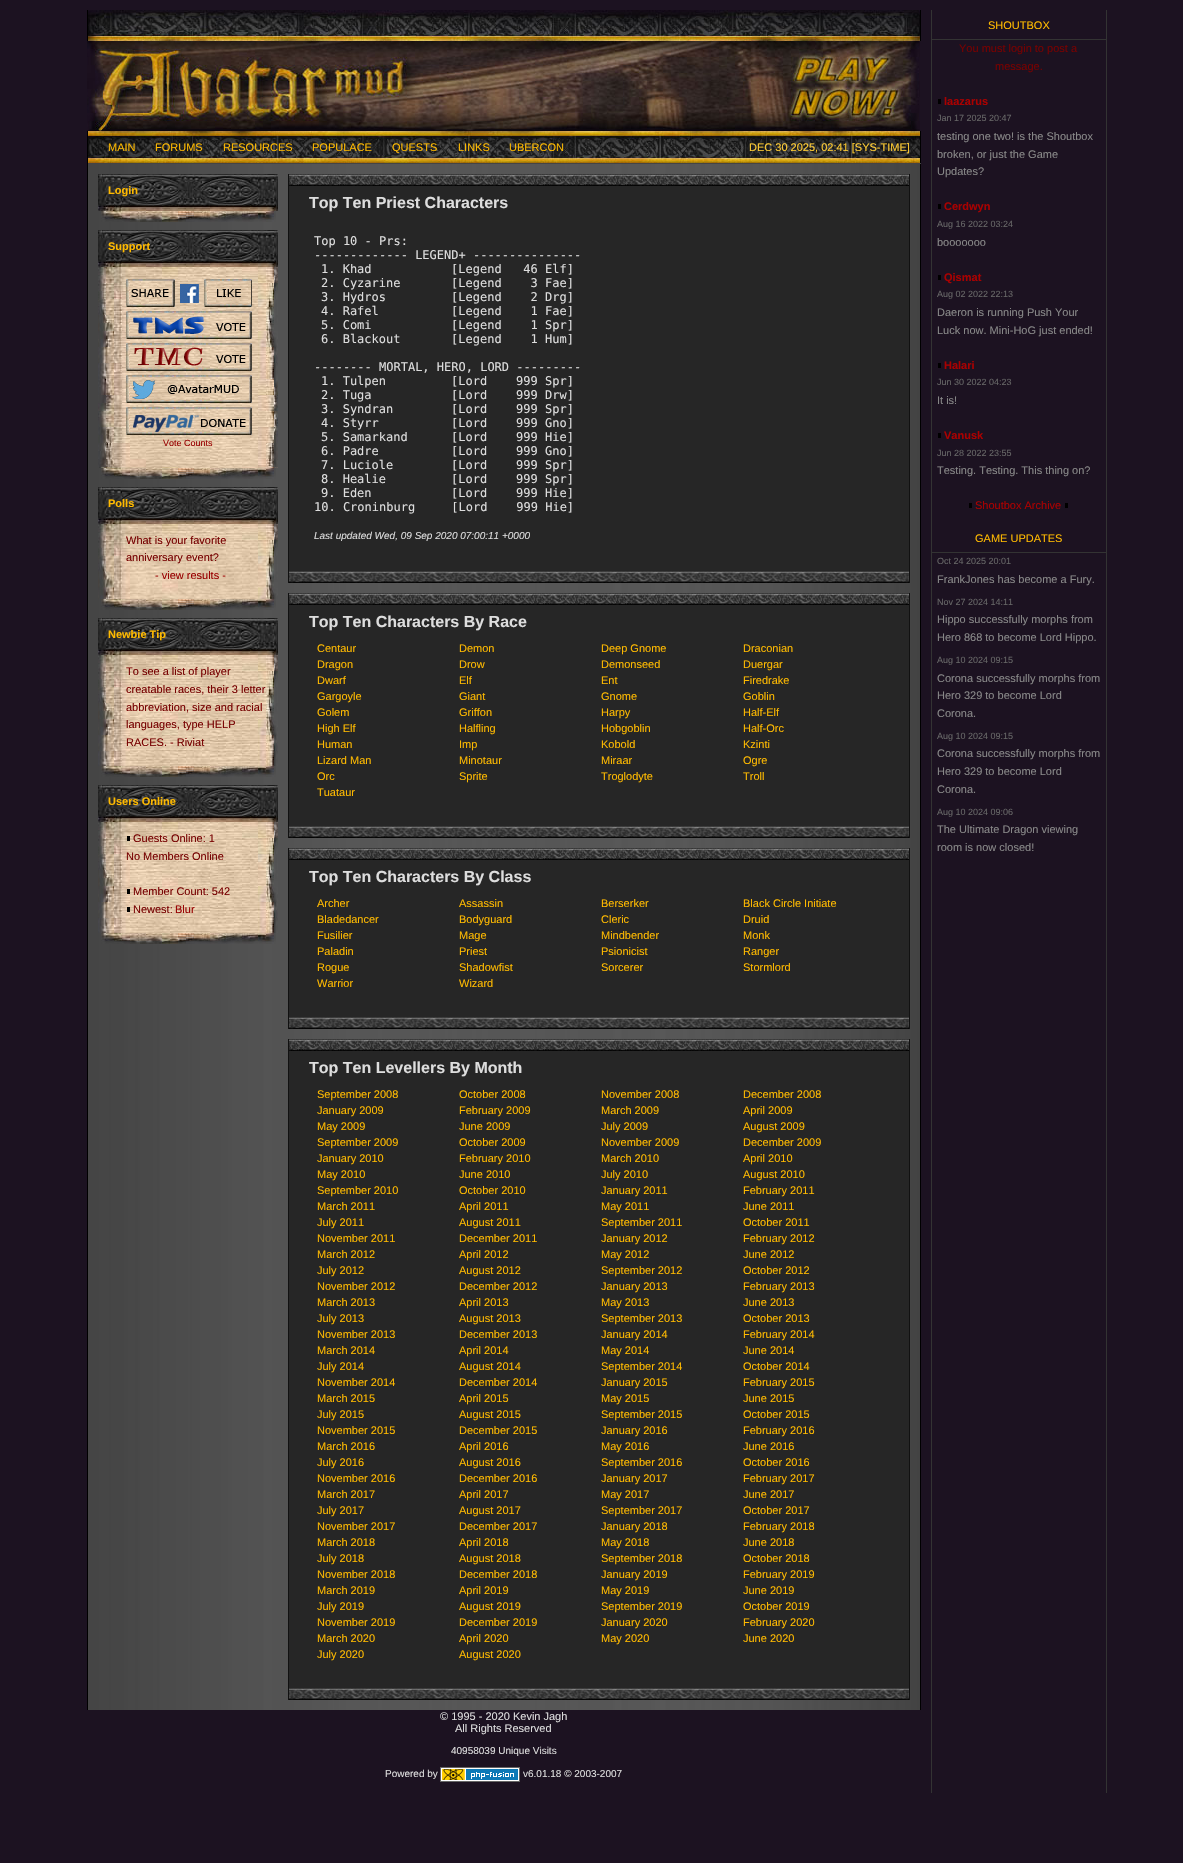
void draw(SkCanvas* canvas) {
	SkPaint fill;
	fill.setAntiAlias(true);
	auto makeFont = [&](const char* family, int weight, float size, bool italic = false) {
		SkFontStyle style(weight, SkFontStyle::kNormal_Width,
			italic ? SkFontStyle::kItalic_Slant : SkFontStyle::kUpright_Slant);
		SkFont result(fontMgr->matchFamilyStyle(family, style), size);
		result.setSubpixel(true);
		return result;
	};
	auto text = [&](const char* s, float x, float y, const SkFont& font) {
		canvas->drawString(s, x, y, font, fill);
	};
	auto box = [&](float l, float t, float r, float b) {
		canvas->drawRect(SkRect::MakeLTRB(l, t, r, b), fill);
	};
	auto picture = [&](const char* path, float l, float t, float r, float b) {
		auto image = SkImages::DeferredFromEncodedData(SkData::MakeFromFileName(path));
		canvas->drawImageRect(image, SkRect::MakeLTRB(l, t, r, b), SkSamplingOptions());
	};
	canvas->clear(0xFF1C1221);
	picture("image0.png", 88, 10, 920, 41);
	fill.setColor(0xFF000000);
	box(920, 10, 921, 41);
	box(87, 10, 88, 41);
	picture("image1.png", 87, 41, 920, 131);
	picture("image2.png", 88, 131, 920, 163);
	box(920, 131, 921, 1710);
	fill.setColor(0xFF444444);
	box(87, 163, 921, 164);
	fill.setColor(0xFF000000);
	box(87, 131, 88, 1710);
	picture("image3.png", 88, 164, 920, 1710);
	picture("image4.png", 101, 211, 276, 222);
	picture("image5.png", 98, 174, 278, 211);
	picture("image4.png", 101, 468, 276, 479);
	picture("image5.png", 98, 230, 278, 267);
	picture("image6.png", 98, 267, 278, 468);
	picture("image7.png", 126, 279, 175, 307);
	picture("image8.png", 175, 279, 204, 307);
	picture("image9.png", 204, 279, 252, 307);
	picture("image10.png", 126, 311, 252, 339);
	picture("image11.png", 126, 343, 252, 371);
	picture("image12.png", 126, 375, 252, 403);
	picture("image13.png", 126, 407, 252, 435);
	picture("image4.png", 101, 599, 276, 610);
	picture("image5.png", 98, 487, 278, 524);
	picture("image14.png", 98, 524, 278, 599);
	picture("image4.png", 101, 766, 276, 777);
	picture("image5.png", 98, 618, 278, 655);
	picture("image15.png", 98, 655, 278, 766);
	picture("image4.png", 101, 933, 276, 944);
	picture("image5.png", 98, 785, 278, 822);
	picture("image15.png", 98, 822, 278, 933);
	box(127, 836, 130, 841);
	box(127, 889, 130, 894);
	box(127, 907, 130, 912);
	fill.setColor(0xFF262626);
	box(289, 186, 909, 571);
	picture("image16.png", 289, 174, 909, 186);
	fill.setColor(0xFF111111);
	box(909, 174, 910, 583);
	box(288, 174, 289, 583);
	picture("image17.png", 289, 571, 909, 583);
	fill.setColor(0xFF262626);
	box(289, 605, 909, 826);
	picture("image16.png", 289, 593, 909, 605);
	fill.setColor(0xFF111111);
	box(909, 593, 910, 838);
	box(288, 593, 289, 838);
	picture("image17.png", 289, 826, 909, 838);
	fill.setColor(0xFF262626);
	box(289, 860, 909, 1017);
	picture("image16.png", 289, 848, 909, 860);
	fill.setColor(0xFF111111);
	box(909, 848, 910, 1029);
	box(288, 848, 289, 1029);
	picture("image17.png", 289, 1017, 909, 1029);
	fill.setColor(0xFF262626);
	box(289, 1051, 909, 1688);
	picture("image16.png", 289, 1039, 909, 1051);
	fill.setColor(0xFF111111);
	box(909, 1039, 910, 1700);
	box(288, 1039, 289, 1700);
	picture("image17.png", 289, 1688, 909, 1700);
	picture("image18.png", 440, 1767, 520, 1782);
	fill.setColor(0xFF333333);
	box(1106, 10, 1107, 1793);
	box(931, 10, 932, 1793);
	box(932, 39, 1106, 40);
	fill.setColor(0xFF000000);
	box(938, 99, 941, 104);
	box(938, 204, 941, 209);
	box(938, 275, 941, 280);
	box(938, 363, 941, 368);
	box(938, 433, 941, 438);
	box(969, 503, 972, 508);
	box(1065, 503, 1068, 508);
	fill.setColor(0xFF333333);
	box(932, 552, 1106, 553);
	auto font1 = makeFont("Liberation Sans", 400, 11);
	fill.setColor(0xFFFFBA00);
	text("MAIN", 108, 151, font1);
	text("FORUMS", 155, 151, font1);
	text("RESOURCES", 223, 151, font1);
	text("POPULACE", 312, 151, font1);
	text("QUESTS", 392, 151, font1);
	text("LINKS", 458, 151, font1);
	text("UBERCON", 509, 151, font1);
	fill.setColor(0xFFFFCC33);
	text("DEC 30 2025, 02:41 [SYS-TIME]", 749, 151, font1);
	auto font2 = makeFont("Liberation Sans", 700, 11);
	fill.setColor(0xFFFFBA00);
	text("Login", 108, 194, font2);
	text("Support", 108, 250, font2);
	auto font3 = makeFont("Liberation Sans", 400, 9);
	fill.setColor(0xFF990000);
	text("Vote Counts", 163, 446, font3);
	fill.setColor(0xFFFFBA00);
	text("Polls", 108, 507, font2);
	fill.setColor(0xFF770000);
	text("What is your favorite", 126, 544, font1);
	text("anniversary event?", 126, 561, font1);
	fill.setColor(0xFF990000);
	text("- view results -", 155, 579, font1);
	fill.setColor(0xFFFFBA00);
	text("Newbie Tip", 108, 638, font2);
	fill.setColor(0xFF770000);
	text("To see a list of player", 126, 675, font1);
	text("creatable races, their 3 letter", 126, 693, font1);
	text("abbreviation, size and racial", 126, 711, font1);
	text("languages, type HELP", 126, 728, font1);
	text("RACES. - Riviat", 126, 746, font1);
	fill.setColor(0xFFFFBA00);
	text("Users Online", 108, 805, font2);
	fill.setColor(0xFF770000);
	text("Guests Online: 1", 133, 842, font1);
	text("No Members Online", 126, 860, font1);
	text("Member Count: 542", 133, 895, font1);
	text("Newest:", 133, 913, font1);
	fill.setColor(0xFF990000);
	text("Blur", 175, 913, font1);
	auto font4 = makeFont("Liberation Sans", 700, 16);
	fill.setColor(0xFFDDDDDD);
	text("Top Ten Priest Characters", 309, 208, font4);
	auto font5 = makeFont("DejaVu Sans Mono", 400, 12);
	text("Top 10 - Prs:", 314, 245, font5);
	text("------------- LEGEND+ ---------------", 314, 259, font5);
	text("1. Khad           [Legend   46 Elf]", 321, 273, font5);
	text("2. Cyzarine       [Legend    3 Fae]", 321, 287, font5);
	text("3. Hydros         [Legend    2 Drg]", 321, 301, font5);
	text("4. Rafel          [Legend    1 Fae]", 321, 315, font5);
	text("5. Comi           [Legend    1 Spr]", 321, 329, font5);
	text("6. Blackout       [Legend    1 Hum]", 321, 343, font5);
	text("-------- MORTAL, HERO, LORD ---------", 314, 371, font5);
	text("1. Tulpen         [Lord    999 Spr]", 321, 385, font5);
	text("2. Tuga           [Lord    999 Drw]", 321, 399, font5);
	text("3. Syndran        [Lord    999 Spr]", 321, 413, font5);
	text("4. Styrr          [Lord    999 Gno]", 321, 427, font5);
	text("5. Samarkand      [Lord    999 Hie]", 321, 441, font5);
	text("6. Padre          [Lord    999 Gno]", 321, 455, font5);
	text("7. Luciole        [Lord    999 Spr]", 321, 469, font5);
	text("8. Healie         [Lord    999 Spr]", 321, 483, font5);
	text("9. Eden           [Lord    999 Hie]", 321, 497, font5);
	text("10. Croninburg     [Lord    999 Hie]", 314, 511, font5);
	auto font6 = makeFont("Liberation Sans", 400, 10, true);
	text("Last updated Wed, 09 Sep 2020 07:00:11 +0000", 314, 539, font6);
	text("Top Ten Characters By Race", 309, 627, font4);
	fill.setColor(0xFFFFBA00);
	text("Centaur", 317, 652, font1);
	text("Demon", 459, 652, font1);
	text("Deep Gnome", 601, 652, font1);
	text("Draconian", 743, 652, font1);
	text("Dragon", 317, 668, font1);
	text("Drow", 459, 668, font1);
	text("Demonseed", 601, 668, font1);
	text("Duergar", 743, 668, font1);
	text("Dwarf", 317, 684, font1);
	text("Elf", 459, 684, font1);
	text("Ent", 601, 684, font1);
	text("Firedrake", 743, 684, font1);
	text("Gargoyle", 317, 700, font1);
	text("Giant", 459, 700, font1);
	text("Gnome", 601, 700, font1);
	text("Goblin", 743, 700, font1);
	text("Golem", 317, 716, font1);
	text("Griffon", 459, 716, font1);
	text("Harpy", 601, 716, font1);
	text("Half-Elf", 743, 716, font1);
	text("High Elf", 317, 732, font1);
	text("Halfling", 459, 732, font1);
	text("Hobgoblin", 601, 732, font1);
	text("Half-Orc", 743, 732, font1);
	text("Human", 317, 748, font1);
	text("Imp", 459, 748, font1);
	text("Kobold", 601, 748, font1);
	text("Kzinti", 743, 748, font1);
	text("Lizard Man", 317, 764, font1);
	text("Minotaur", 459, 764, font1);
	text("Miraar", 601, 764, font1);
	text("Ogre", 743, 764, font1);
	text("Orc", 317, 780, font1);
	text("Sprite", 459, 780, font1);
	text("Troglodyte", 601, 780, font1);
	text("Troll", 743, 780, font1);
	text("Tuataur", 317, 796, font1);
	fill.setColor(0xFFDDDDDD);
	text("Top Ten Characters By Class", 309, 882, font4);
	fill.setColor(0xFFFFBA00);
	text("Archer", 317, 907, font1);
	text("Assassin", 459, 907, font1);
	text("Berserker", 601, 907, font1);
	text("Black Circle Initiate", 743, 907, font1);
	text("Bladedancer", 317, 923, font1);
	text("Bodyguard", 459, 923, font1);
	text("Cleric", 601, 923, font1);
	text("Druid", 743, 923, font1);
	text("Fusilier", 317, 939, font1);
	text("Mage", 459, 939, font1);
	text("Mindbender", 601, 939, font1);
	text("Monk", 743, 939, font1);
	text("Paladin", 317, 955, font1);
	text("Priest", 459, 955, font1);
	text("Psionicist", 601, 955, font1);
	text("Ranger", 743, 955, font1);
	text("Rogue", 317, 971, font1);
	text("Shadowfist", 459, 971, font1);
	text("Sorcerer", 601, 971, font1);
	text("Stormlord", 743, 971, font1);
	text("Warrior", 317, 987, font1);
	text("Wizard", 459, 987, font1);
	fill.setColor(0xFFDDDDDD);
	text("Top Ten Levellers By Month", 309, 1073, font4);
	fill.setColor(0xFFFFBA00);
	text("September 2008", 317, 1098, font1);
	text("October 2008", 459, 1098, font1);
	text("November 2008", 601, 1098, font1);
	text("December 2008", 743, 1098, font1);
	text("January 2009", 317, 1114, font1);
	text("February 2009", 459, 1114, font1);
	text("March 2009", 601, 1114, font1);
	text("April 2009", 743, 1114, font1);
	text("May 2009", 317, 1130, font1);
	text("June 2009", 459, 1130, font1);
	text("July 2009", 601, 1130, font1);
	text("August 2009", 743, 1130, font1);
	text("September 2009", 317, 1146, font1);
	text("October 2009", 459, 1146, font1);
	text("November 2009", 601, 1146, font1);
	text("December 2009", 743, 1146, font1);
	text("January 2010", 317, 1162, font1);
	text("February 2010", 459, 1162, font1);
	text("March 2010", 601, 1162, font1);
	text("April 2010", 743, 1162, font1);
	text("May 2010", 317, 1178, font1);
	text("June 2010", 459, 1178, font1);
	text("July 2010", 601, 1178, font1);
	text("August 2010", 743, 1178, font1);
	text("September 2010", 317, 1194, font1);
	text("October 2010", 459, 1194, font1);
	text("January 2011", 601, 1194, font1);
	text("February 2011", 743, 1194, font1);
	text("March 2011", 317, 1210, font1);
	text("April 2011", 459, 1210, font1);
	text("May 2011", 601, 1210, font1);
	text("June 2011", 743, 1210, font1);
	text("July 2011", 317, 1226, font1);
	text("August 2011", 459, 1226, font1);
	text("September 2011", 601, 1226, font1);
	text("October 2011", 743, 1226, font1);
	text("November 2011", 317, 1242, font1);
	text("December 2011", 459, 1242, font1);
	text("January 2012", 601, 1242, font1);
	text("February 2012", 743, 1242, font1);
	text("March 2012", 317, 1258, font1);
	text("April 2012", 459, 1258, font1);
	text("May 2012", 601, 1258, font1);
	text("June 2012", 743, 1258, font1);
	text("July 2012", 317, 1274, font1);
	text("August 2012", 459, 1274, font1);
	text("September 2012", 601, 1274, font1);
	text("October 2012", 743, 1274, font1);
	text("November 2012", 317, 1290, font1);
	text("December 2012", 459, 1290, font1);
	text("January 2013", 601, 1290, font1);
	text("February 2013", 743, 1290, font1);
	text("March 2013", 317, 1306, font1);
	text("April 2013", 459, 1306, font1);
	text("May 2013", 601, 1306, font1);
	text("June 2013", 743, 1306, font1);
	text("July 2013", 317, 1322, font1);
	text("August 2013", 459, 1322, font1);
	text("September 2013", 601, 1322, font1);
	text("October 2013", 743, 1322, font1);
	text("November 2013", 317, 1338, font1);
	text("December 2013", 459, 1338, font1);
	text("January 2014", 601, 1338, font1);
	text("February 2014", 743, 1338, font1);
	text("March 2014", 317, 1354, font1);
	text("April 2014", 459, 1354, font1);
	text("May 2014", 601, 1354, font1);
	text("June 2014", 743, 1354, font1);
	text("July 2014", 317, 1370, font1);
	text("August 2014", 459, 1370, font1);
	text("September 2014", 601, 1370, font1);
	text("October 2014", 743, 1370, font1);
	text("November 2014", 317, 1386, font1);
	text("December 2014", 459, 1386, font1);
	text("January 2015", 601, 1386, font1);
	text("February 2015", 743, 1386, font1);
	text("March 2015", 317, 1402, font1);
	text("April 2015", 459, 1402, font1);
	text("May 2015", 601, 1402, font1);
	text("June 2015", 743, 1402, font1);
	text("July 2015", 317, 1418, font1);
	text("August 2015", 459, 1418, font1);
	text("September 2015", 601, 1418, font1);
	text("October 2015", 743, 1418, font1);
	text("November 2015", 317, 1434, font1);
	text("December 2015", 459, 1434, font1);
	text("January 2016", 601, 1434, font1);
	text("February 2016", 743, 1434, font1);
	text("March 2016", 317, 1450, font1);
	text("April 2016", 459, 1450, font1);
	text("May 2016", 601, 1450, font1);
	text("June 2016", 743, 1450, font1);
	text("July 2016", 317, 1466, font1);
	text("August 2016", 459, 1466, font1);
	text("September 2016", 601, 1466, font1);
	text("October 2016", 743, 1466, font1);
	text("November 2016", 317, 1482, font1);
	text("December 2016", 459, 1482, font1);
	text("January 2017", 601, 1482, font1);
	text("February 2017", 743, 1482, font1);
	text("March 2017", 317, 1498, font1);
	text("April 2017", 459, 1498, font1);
	text("May 2017", 601, 1498, font1);
	text("June 2017", 743, 1498, font1);
	text("July 2017", 317, 1514, font1);
	text("August 2017", 459, 1514, font1);
	text("September 2017", 601, 1514, font1);
	text("October 2017", 743, 1514, font1);
	text("November 2017", 317, 1530, font1);
	text("December 2017", 459, 1530, font1);
	text("January 2018", 601, 1530, font1);
	text("February 2018", 743, 1530, font1);
	text("March 2018", 317, 1546, font1);
	text("April 2018", 459, 1546, font1);
	text("May 2018", 601, 1546, font1);
	text("June 2018", 743, 1546, font1);
	text("July 2018", 317, 1562, font1);
	text("August 2018", 459, 1562, font1);
	text("September 2018", 601, 1562, font1);
	text("October 2018", 743, 1562, font1);
	text("November 2018", 317, 1578, font1);
	text("December 2018", 459, 1578, font1);
	text("January 2019", 601, 1578, font1);
	text("February 2019", 743, 1578, font1);
	text("March 2019", 317, 1594, font1);
	text("April 2019", 459, 1594, font1);
	text("May 2019", 601, 1594, font1);
	text("June 2019", 743, 1594, font1);
	text("July 2019", 317, 1610, font1);
	text("August 2019", 459, 1610, font1);
	text("September 2019", 601, 1610, font1);
	text("October 2019", 743, 1610, font1);
	text("November 2019", 317, 1626, font1);
	text("December 2019", 459, 1626, font1);
	text("January 2020", 601, 1626, font1);
	text("February 2020", 743, 1626, font1);
	text("March 2020", 317, 1642, font1);
	text("April 2020", 459, 1642, font1);
	text("May 2020", 601, 1642, font1);
	text("June 2020", 743, 1642, font1);
	text("July 2020", 317, 1658, font1);
	text("August 2020", 459, 1658, font1);
	fill.setColor(0xFFDDDDDD);
	text("© 1995 - 2020 Kevin Jagh", 440, 1720, font1);
	text("All Rights Reserved", 455, 1732, font1);
	auto font7 = makeFont("Liberation Sans", 400, 10);
	text("40958039 Unique Visits", 451, 1754, font7);
	text("Powered by", 385, 1777, font7);
	text("v6.01.18 © 2003-2007", 523, 1777, font7);
	fill.setColor(0xFFFFBA00);
	text("SHOUTBOX", 988, 29, font1);
	fill.setColor(0xFF770000);
	text("You must login to post a", 959, 52, font1);
	text("message.", 995, 70, font1);
	fill.setColor(0xFFAA0000);
	text("laazarus", 944, 105, font2);
	fill.setColor(0xFF666666);
	text("Jan 17 2025 20:47", 937, 121, font3);
	fill.setColor(0xFF888888);
	text("testing one two! is the Shoutbox", 937, 140, font1);
	text("broken, or just the Game", 937, 158, font1);
	text("Updates?", 937, 175, font1);
	fill.setColor(0xFFAA0000);
	text("Cerdwyn", 944, 210, font2);
	fill.setColor(0xFF666666);
	text("Aug 16 2022 03:24", 937, 227, font3);
	fill.setColor(0xFF888888);
	text("booooooo", 937, 246, font1);
	fill.setColor(0xFFAA0000);
	text("Qismat", 944, 281, font2);
	fill.setColor(0xFF666666);
	text("Aug 02 2022 22:13", 937, 297, font3);
	fill.setColor(0xFF888888);
	text("Daeron is running Push Your", 937, 316, font1);
	text("Luck now. Mini-HoG just ended!", 937, 334, font1);
	fill.setColor(0xFFAA0000);
	text("Halari", 944, 369, font2);
	fill.setColor(0xFF666666);
	text("Jun 30 2022 04:23", 937, 385, font3);
	fill.setColor(0xFF888888);
	text("It is!", 937, 404, font1);
	fill.setColor(0xFFAA0000);
	text("Vanusk", 944, 439, font2);
	fill.setColor(0xFF666666);
	text("Jun 28 2022 23:55", 937, 456, font3);
	fill.setColor(0xFF888888);
	text("Testing. Testing. This thing on?", 937, 474, font1);
	fill.setColor(0xFFAA0000);
	text("Shoutbox Archive", 975, 509, font1);
	fill.setColor(0xFFFFBA00);
	text("GAME UPDATES", 975, 542, font1);
	fill.setColor(0xFF666666);
	text("Oct 24 2025 20:01", 937, 564, font3);
	fill.setColor(0xFF888888);
	text("FrankJones has become a Fury.", 937, 583, font1);
	fill.setColor(0xFF666666);
	text("Nov 27 2024 14:11", 937, 605, font3);
	fill.setColor(0xFF888888);
	text("Hippo successfully morphs from", 937, 623, font1);
	text("Hero 868 to become Lord Hippo.", 937, 641, font1);
	fill.setColor(0xFF666666);
	text("Aug 10 2024 09:15", 937, 663, font3);
	fill.setColor(0xFF888888);
	text("Corona successfully morphs from", 937, 682, font1);
	text("Hero 329 to become Lord", 937, 699, font1);
	text("Corona.", 937, 717, font1);
	fill.setColor(0xFF666666);
	text("Aug 10 2024 09:15", 937, 739, font3);
	fill.setColor(0xFF888888);
	text("Corona successfully morphs from", 937, 757, font1);
	text("Hero 329 to become Lord", 937, 775, font1);
	text("Corona.", 937, 793, font1);
	fill.setColor(0xFF666666);
	text("Aug 10 2024 09:06", 937, 815, font3);
	fill.setColor(0xFF888888);
	text("The Ultimate Dragon viewing", 937, 833, font1);
	text("room is now closed!", 937, 851, font1);
}
